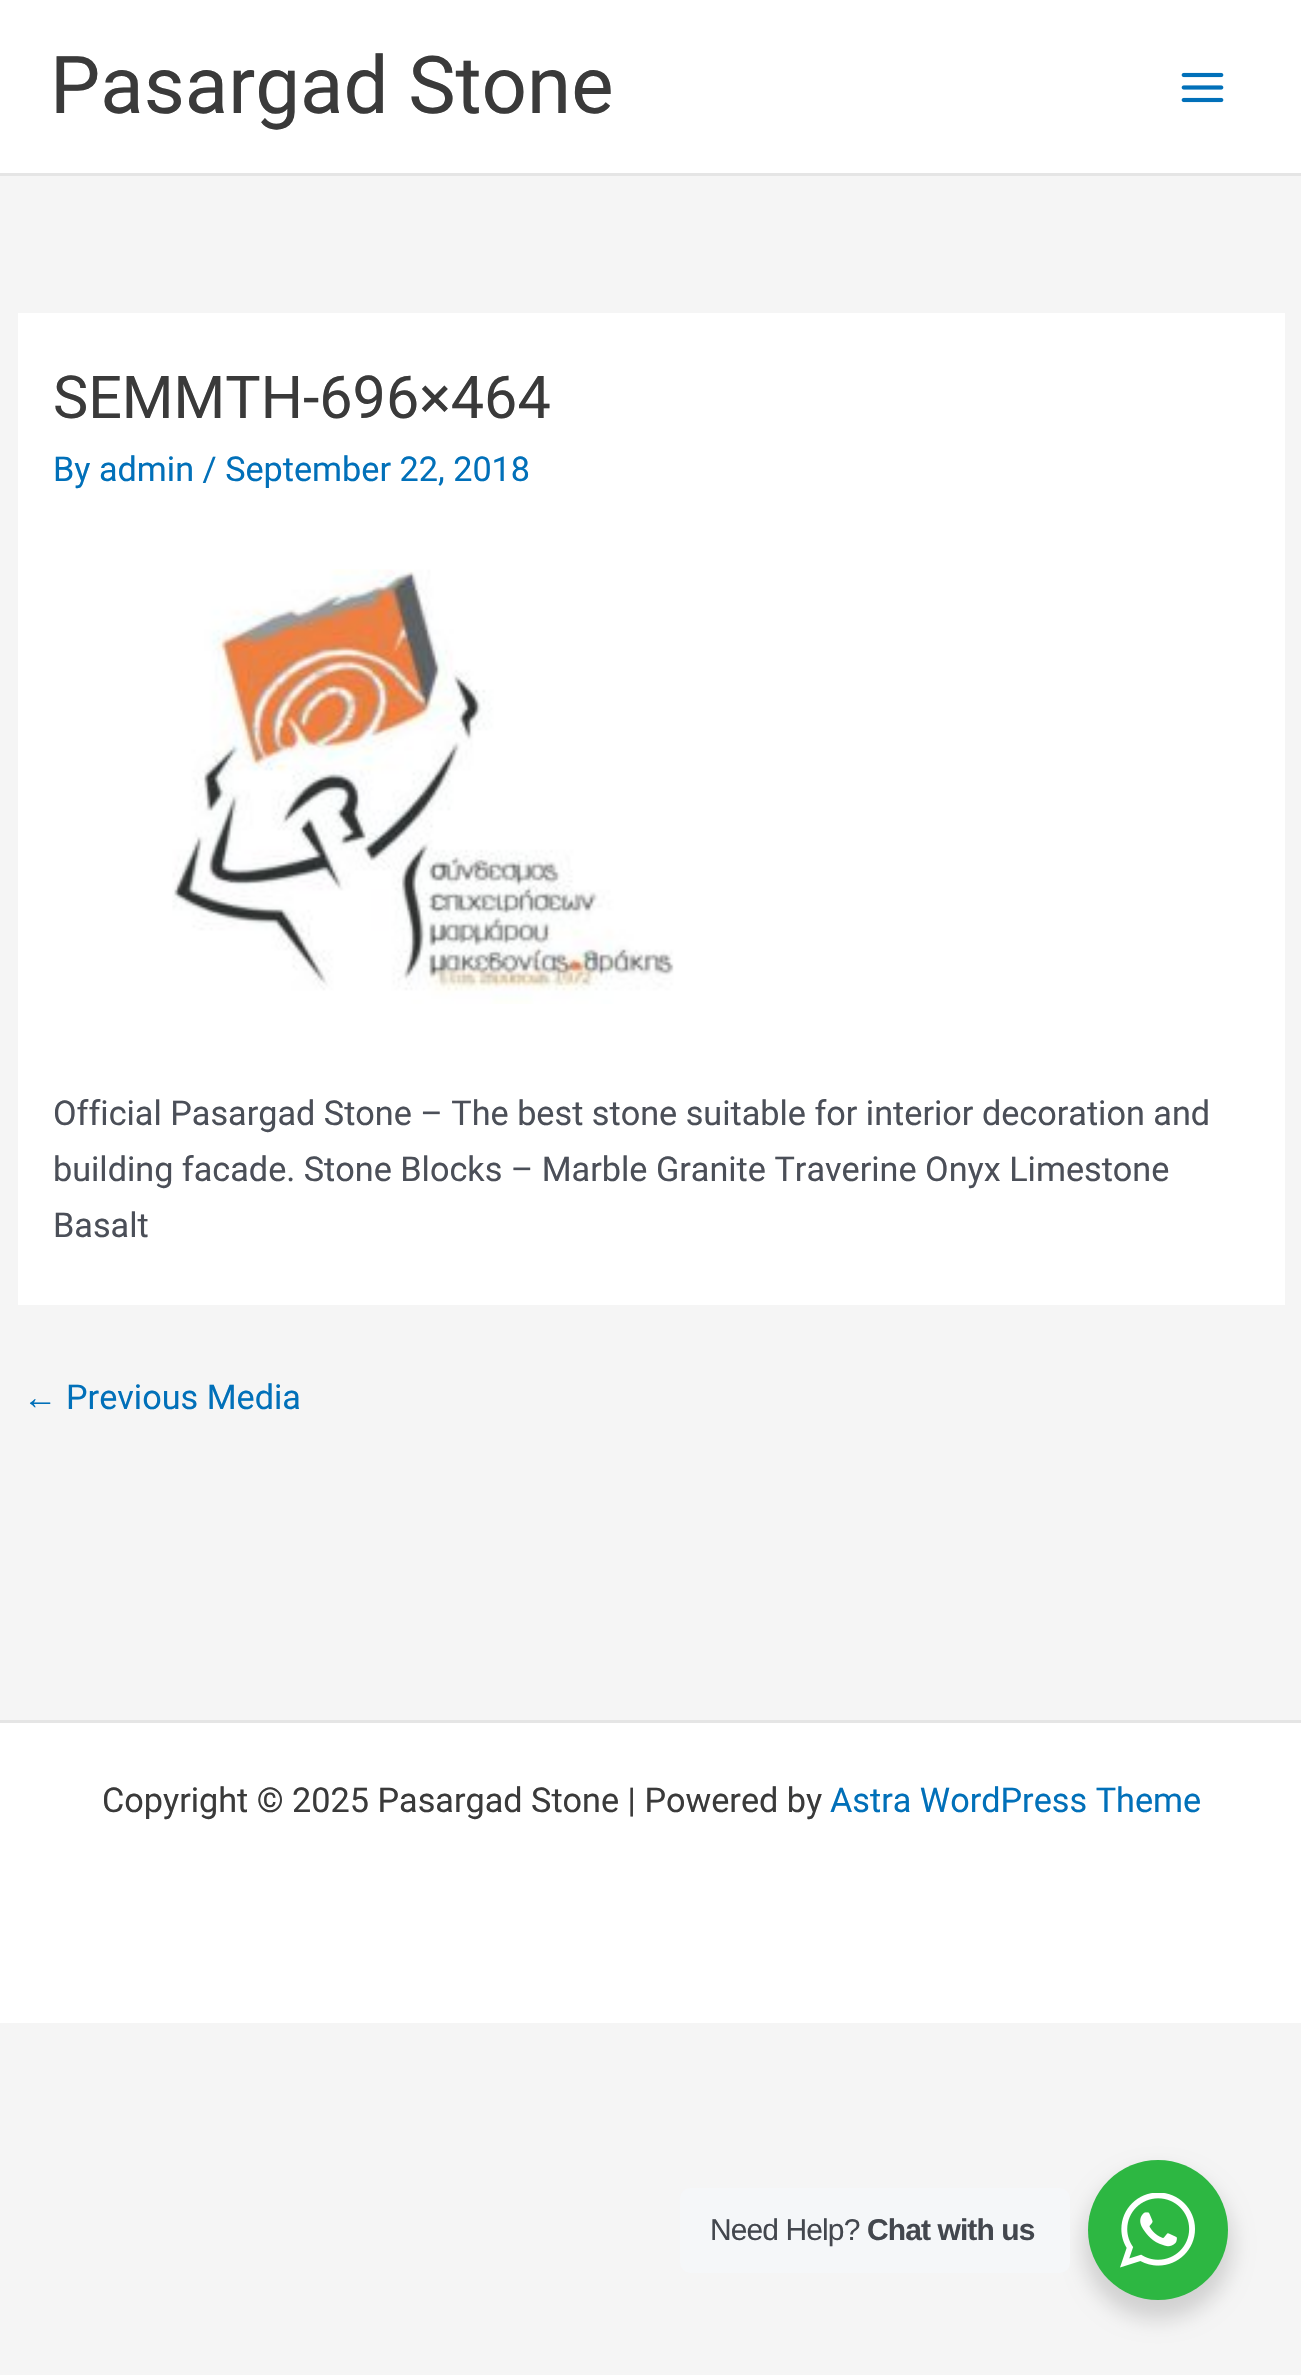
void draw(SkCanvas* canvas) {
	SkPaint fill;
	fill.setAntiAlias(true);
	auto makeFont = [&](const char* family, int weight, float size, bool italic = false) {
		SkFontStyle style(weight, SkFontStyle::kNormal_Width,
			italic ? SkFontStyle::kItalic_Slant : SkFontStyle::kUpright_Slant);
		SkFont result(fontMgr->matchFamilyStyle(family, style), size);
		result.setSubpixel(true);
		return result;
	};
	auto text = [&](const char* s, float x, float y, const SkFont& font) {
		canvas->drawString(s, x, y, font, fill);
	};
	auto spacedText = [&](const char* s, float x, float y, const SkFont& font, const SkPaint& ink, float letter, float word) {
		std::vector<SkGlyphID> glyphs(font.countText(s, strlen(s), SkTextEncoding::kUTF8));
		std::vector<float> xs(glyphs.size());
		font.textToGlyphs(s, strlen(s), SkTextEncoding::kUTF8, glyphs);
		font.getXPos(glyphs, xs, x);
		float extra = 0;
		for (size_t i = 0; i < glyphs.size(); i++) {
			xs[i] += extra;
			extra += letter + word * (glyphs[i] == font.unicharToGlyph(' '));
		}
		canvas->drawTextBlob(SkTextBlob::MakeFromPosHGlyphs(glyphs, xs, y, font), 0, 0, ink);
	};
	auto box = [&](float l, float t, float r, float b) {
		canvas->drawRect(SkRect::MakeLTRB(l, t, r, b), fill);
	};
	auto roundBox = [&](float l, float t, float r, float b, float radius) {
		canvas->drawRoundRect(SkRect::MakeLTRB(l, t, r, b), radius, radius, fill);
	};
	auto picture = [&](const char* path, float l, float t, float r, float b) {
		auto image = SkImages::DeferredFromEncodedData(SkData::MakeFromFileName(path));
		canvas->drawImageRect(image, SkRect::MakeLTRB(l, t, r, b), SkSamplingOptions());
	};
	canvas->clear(0xFFF5F5F5);
	fill.setColor(0xFFFFFFFF);
	box(0, 0, 1301, 173);
	fill.setColor(0xFFE5E5E5);
	box(0, 173, 1301, 176);
	picture("image0.png", 1181, 72, 1224, 103);
	fill.setColor(0xFFFFFFFF);
	box(18, 313, 1285, 1305);
	picture("image1.png", 172, 569, 674, 1004);
	box(0, 1723, 1301, 2023);
	fill.setColor(0xFFE5E5E5);
	box(0, 1720, 1301, 1723);
	fill.setColor(0x24000000);
	fill.setMaskFilter(SkMaskFilter::MakeBlur(kNormal_SkBlurStyle, 10));
	canvas->drawRoundRect(SkRect::MakeLTRB(1083, 2170, 1233, 2320), 75, 75, fill);
	fill.setMaskFilter(nullptr);
	fill.setColor(0xFFF5F7F9);
	roundBox(680, 2188, 1070, 2273, 10);
	fill.setColor(0xFF2DB742);
	canvas->drawCircle(1158, 2230, 70, fill);
	picture("image2.png", 1120, 2193, 1195, 2268);
	auto font1 = makeFont("Roboto", 400, 79.75f);
	fill.setColor(0xFF3A3A3A);
	text("Pasargad Stone", 50, 113, font1);
	auto font2 = makeFont("Roboto", 400, 59.25f);
	text("SEMMTH-696×464", 53, 418, font2);
	auto font3 = makeFont("Roboto", 400, 34.2f);
	fill.setColor(0xFF0170B9);
	text("By admin / September 22, 2018", 53, 481, font3);
	fill.setColor(0xFF4B4F58);
	text("Official Pasargad Stone – The best stone suitable for interior decoration and", 53, 1125, font3);
	text("building facade. Stone Blocks – Marble Granite Traverine Onyx Limestone", 53, 1181, font3);
	text("Basalt", 53, 1237, font3);
	auto font4 = makeFont("Liberation Sans", 400, 34.2f);
	fill.setColor(0xFF0170B9);
	text("←", 23, 1409, font4);
	text("Previous Media", 66, 1409, font3);
	fill.setColor(0xFF3A3A3A);
	text("Copyright © 2025 Pasargad Stone | Powered by", 102, 1812, font3);
	fill.setColor(0xFF0170B9);
	text("Astra WordPress Theme", 830, 1812, font3);
	auto font5 = makeFont("Liberation Sans", 400, 30);
	fill.setColor(0xFF43474E);
	spacedText("Need Help?", 710, 2240, font5, fill, -0.9f, 0);
	auto font6 = makeFont("Liberation Sans", 700, 30);
	spacedText("Chat with us", 867, 2240, font6, fill, -0.9f, 0);
}
